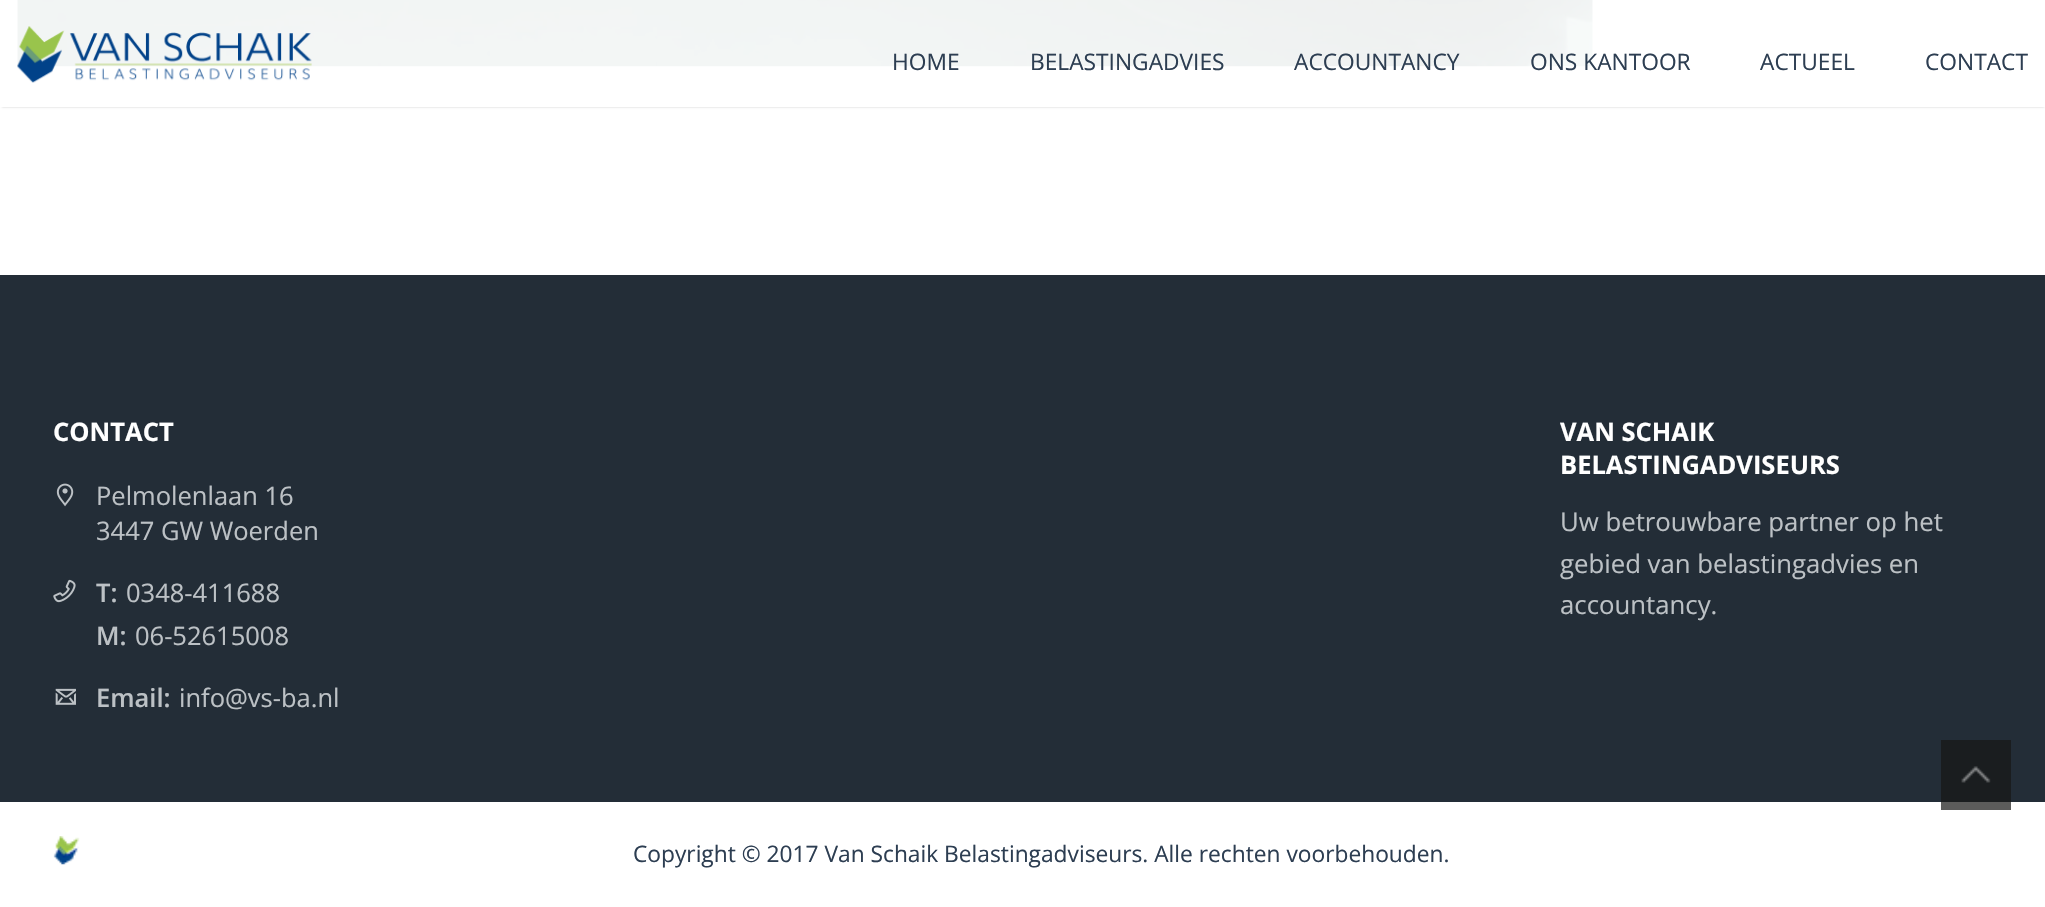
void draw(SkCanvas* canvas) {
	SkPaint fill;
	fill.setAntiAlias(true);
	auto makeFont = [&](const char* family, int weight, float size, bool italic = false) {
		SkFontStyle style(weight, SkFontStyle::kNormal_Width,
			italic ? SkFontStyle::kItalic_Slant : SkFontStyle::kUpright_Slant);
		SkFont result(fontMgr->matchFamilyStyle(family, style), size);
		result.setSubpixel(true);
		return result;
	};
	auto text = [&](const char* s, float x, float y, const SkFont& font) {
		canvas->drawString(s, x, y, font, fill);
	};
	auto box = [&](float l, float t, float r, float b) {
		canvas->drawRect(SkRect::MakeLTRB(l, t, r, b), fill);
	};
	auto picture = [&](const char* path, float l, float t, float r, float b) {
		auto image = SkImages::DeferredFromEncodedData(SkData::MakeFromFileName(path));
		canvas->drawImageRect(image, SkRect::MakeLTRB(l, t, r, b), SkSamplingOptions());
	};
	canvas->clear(0xFFFFFFFF);
	fill.setColor(0xFF5C5C5B);
	box(1941, 802, 2011, 810);
	picture("image0.png", 17, 0, 1593, 67);
	canvas->save();
	canvas->clipPath(SkPathBuilder(SkPathFillType::kEvenOdd).moveTo(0, 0).lineTo(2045, 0).lineTo(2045, 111).lineTo(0, 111).close().moveTo(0, 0).lineTo(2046, 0).lineTo(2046, 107).lineTo(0, 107).close().detach(), true);
	fill.setColor(0x33000000);
	fill.setMaskFilter(SkMaskFilter::MakeBlur(kNormal_SkBlurStyle, 1));
	canvas->drawRect(SkRect::MakeLTRB(2, 4, 2044, 107), fill);
	fill.setMaskFilter(nullptr);
	canvas->restore();
	fill.setColor(0xE6FFFFFF);
	box(2, 0, 2044, 107);
	picture("image1.png", 17, 26, 312, 83);
	fill.setColor(0xFF232D37);
	box(0, 275, 2045, 802);
	fill.setColor(0xFF1A1D1F);
	box(1941, 740, 2011, 802);
	picture("image2.png", 56, 483, 74, 507);
	picture("image3.png", 53, 579, 76, 603);
	picture("image4.png", 55, 688, 76, 705);
	picture("image5.png", 1961, 766, 1991, 783);
	picture("image6.png", 53, 836, 80, 865);
	auto font1 = makeFont("Open Sans", 400, 22.75f);
	fill.setColor(0xFF2D3E52);
	text("HOME", 892, 70, font1);
	text("BELASTINGADVIES", 1030, 70, font1);
	text("ACCOUNTANCY", 1294, 70, font1);
	text("ONS KANTOOR", 1530, 70, font1);
	text("ACTUEEL", 1760, 70, font1);
	text("CONTACT", 1925, 70, font1);
	auto font2 = makeFont("Open Sans", 700, 25.5f);
	fill.setColor(0xFFFFFFFF);
	text("CONTACT", 53, 441, font2);
	auto font3 = makeFont("Open Sans", 400, 25.5f);
	fill.setColor(0xFFBCC1C5);
	text("Pelmolenlaan 16", 96, 505, font3);
	text("3447 GW Woerden", 96, 540, font3);
	auto font4 = makeFont("Open Sans", 600, 25.5f);
	text("T:", 96, 602, font4);
	text("0348-411688", 126, 602, font3);
	text("M:", 96, 645, font4);
	text("06-52615008", 135, 645, font3);
	text("Email:", 96, 707, font4);
	text("info@vs-ba.nl", 179, 707, font3);
	fill.setColor(0xFFFFFFFF);
	text("VAN SCHAIK", 1560, 441, font2);
	text("BELASTINGADVISEURS", 1560, 474, font2);
	auto font5 = makeFont("Open Sans", 400, 25.75f);
	fill.setColor(0xFFBCC1C5);
	text("Uw betrouwbare partner op het", 1560, 531, font5);
	text("gebied van belastingadvies en", 1560, 573, font5);
	text("accountancy.", 1560, 614, font5);
	fill.setColor(0xFF2D3E52);
	text("Copyright © 2017 Van Schaik Belastingadviseurs. Alle rechten voorbehouden.", 633, 862, font1);
}
